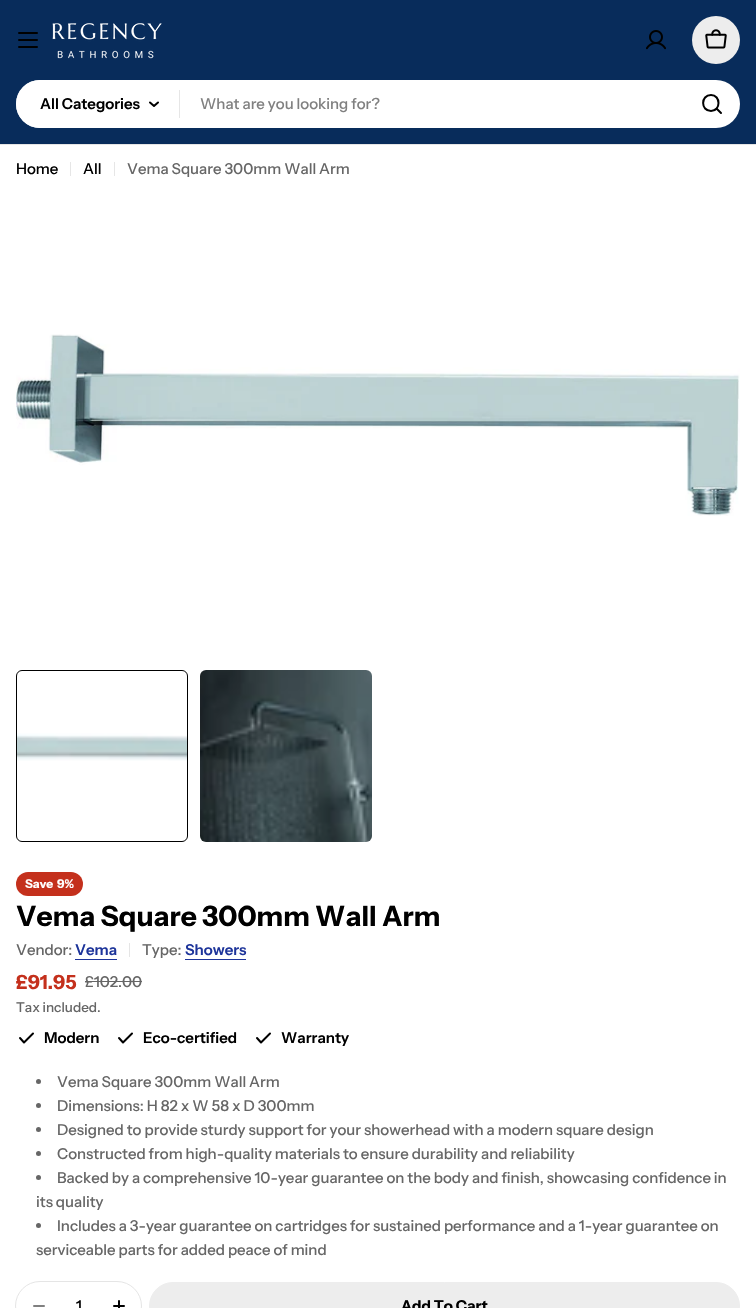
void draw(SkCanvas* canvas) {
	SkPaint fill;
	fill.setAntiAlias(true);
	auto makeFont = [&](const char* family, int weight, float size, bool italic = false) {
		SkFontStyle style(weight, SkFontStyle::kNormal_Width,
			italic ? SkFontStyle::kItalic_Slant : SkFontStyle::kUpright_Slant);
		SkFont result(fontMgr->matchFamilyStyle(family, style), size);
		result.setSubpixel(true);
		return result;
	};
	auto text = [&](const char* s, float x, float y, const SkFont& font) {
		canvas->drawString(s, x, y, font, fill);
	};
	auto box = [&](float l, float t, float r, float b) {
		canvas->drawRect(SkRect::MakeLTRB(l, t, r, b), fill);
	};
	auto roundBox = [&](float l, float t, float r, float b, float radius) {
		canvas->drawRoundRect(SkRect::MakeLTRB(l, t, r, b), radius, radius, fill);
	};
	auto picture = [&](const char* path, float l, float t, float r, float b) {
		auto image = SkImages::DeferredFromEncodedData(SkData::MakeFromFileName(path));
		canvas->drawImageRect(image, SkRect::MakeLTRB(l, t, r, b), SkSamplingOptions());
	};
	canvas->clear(0xFFFFFFFF);
	fill.setColor(0xFF082C5B);
	box(0, 0, 756, 144);
	fill.setColor(0xFF000000);
	roundBox(18, 39, 38, 41, 1);
	roundBox(18, 32, 38, 34, 1);
	roundBox(18, 46, 38, 48, 1);
	picture("image0.png", 52, 23, 162, 59);
	picture("image1.png", 646, 30, 666, 50);
	fill.setColor(0xFFEDEDED);
	canvas->drawCircle(716, 40, 24, fill);
	picture("image2.png", 705, 29, 727, 49);
	fill.setColor(0xFFFFFFFF);
	roundBox(16, 80, 740, 128, 24);
	roundBox(16, 80, 180, 128, 24);
	fill.setStyle(SkPaint::kStroke_Style);
	fill.setStrokeWidth(2);
	fill.setStrokeCap(SkPaint::kRound_Cap);
	fill.setStrokeJoin(SkPaint::kRound_Join);
	fill.setColor(0xFF000000);
	canvas->drawPath(SkPathBuilder().moveTo(158, 102.5f).lineTo(154, 106).lineTo(150, 102.5f).detach(), fill);
	fill.setStyle(SkPaint::kFill_Style);
	fill.setColor(0xFFE6E6E6);
	box(179, 90, 180, 118);
	fill.setStyle(SkPaint::kStroke_Style);
	fill.setColor(0xFF000000);
	canvas->drawPath(SkPathBuilder().moveTo(711, 111).cubicTo(721, 111, 721, 95, 711, 95).cubicTo(700.5f, 95, 700.5f, 111, 711, 111).close().moveTo(716.5f, 108.5f).lineTo(721, 113).detach(), fill);
	fill.setStyle(SkPaint::kFill_Style);
	fill.setColor(0xFFE5E5E5);
	box(0, 144, 756, 145);
	fill.setColor(0xFFE6E6E6);
	box(70, 162, 71, 176);
	box(114, 162, 115, 176);
	picture("image3.png", 16, 334, 740, 516);
	picture("image4.png", 17, 733, 187, 761);
	fill.setStyle(SkPaint::kStroke_Style);
	fill.setStrokeWidth(1);
	fill.setStrokeCap(SkPaint::kButt_Cap);
	fill.setStrokeJoin(SkPaint::kMiter_Join);
	fill.setColor(0xFF000000);
	canvas->drawRoundRect(SkRect::MakeLTRB(16.5f, 670.5f, 187.5f, 841.5f), 5.5f, 5.5f, fill);
	picture("image5.png", 200, 670, 372, 842);
	fill.setStyle(SkPaint::kFill_Style);
	fill.setColor(0xFFC4301C);
	roundBox(16, 872, 83, 896, 12);
	fill.setColor(0xFF1D349A);
	box(75, 959, 117, 960);
	fill.setColor(0xFFE5E5E5);
	box(129, 943, 130, 957);
	fill.setColor(0xFF1D349A);
	box(185, 959, 246, 960);
	fill.setColor(0xFF666666);
	box(85, 981, 142, 982);
	fill.setStyle(SkPaint::kStroke_Style);
	fill.setStrokeWidth(2);
	fill.setStrokeCap(SkPaint::kRound_Cap);
	fill.setStrokeJoin(SkPaint::kRound_Join);
	fill.setColor(0xFF000000);
	canvas->drawPath(SkPathBuilder().moveTo(33, 1033.5f).lineTo(24, 1042.5f).lineTo(20, 1038).detach(), fill);
	canvas->drawPath(SkPathBuilder().moveTo(132, 1033.5f).lineTo(123, 1042.5f).lineTo(119, 1038).detach(), fill);
	canvas->drawPath(SkPathBuilder().moveTo(270, 1033.5f).lineTo(261, 1042.5f).lineTo(257, 1038).detach(), fill);
	fill.setStyle(SkPaint::kFill_Style);
	fill.setColor(0xFF666666);
	canvas->drawCircle(38.5f, 1081.5f, 2.5f, fill);
	canvas->drawCircle(38.5f, 1105.5f, 2.5f, fill);
	canvas->drawCircle(38.5f, 1129.5f, 2.5f, fill);
	canvas->drawCircle(38.5f, 1153.5f, 2.5f, fill);
	canvas->drawCircle(38.5f, 1177.5f, 2.5f, fill);
	canvas->drawCircle(38.5f, 1225.5f, 2.5f, fill);
	fill.setStyle(SkPaint::kStroke_Style);
	fill.setStrokeWidth(1);
	fill.setStrokeCap(SkPaint::kButt_Cap);
	fill.setStrokeJoin(SkPaint::kMiter_Join);
	fill.setColor(0xFFE5E5E5);
	canvas->drawRoundRect(SkRect::MakeLTRB(15.5f, 1281.5f, 141.5f, 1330.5f), 24.5f, 24.5f, fill);
	fill.setStrokeWidth(2);
	fill.setStrokeCap(SkPaint::kRound_Cap);
	fill.setStrokeJoin(SkPaint::kRound_Join);
	fill.setColor(0xFF808080);
	canvas->drawPath(SkPathBuilder().moveTo(34, 1306).lineTo(44, 1306).detach(), fill);
	fill.setColor(0xFF000000);
	canvas->drawPath(SkPathBuilder().moveTo(114, 1306).lineTo(124, 1306).moveTo(119, 1301).lineTo(119, 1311).detach(), fill);
	fill.setStyle(SkPaint::kFill_Style);
	fill.setColor(0xFFEDEDED);
	canvas->drawRoundRect(SkRect::MakeLTRB(149.5f, 1282.5f, 739.5f, 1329.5f), 23.5f, 23.5f, fill);
	fill.setStyle(SkPaint::kStroke_Style);
	fill.setStrokeWidth(1);
	fill.setStrokeCap(SkPaint::kButt_Cap);
	fill.setStrokeJoin(SkPaint::kMiter_Join);
	canvas->drawRoundRect(SkRect::MakeLTRB(149.5f, 1282.5f, 739.5f, 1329.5f), 23.5f, 23.5f, fill);
	auto font1 = makeFont("Instrument Sans", 600, 15);
	fill.setStyle(SkPaint::kFill_Style);
	fill.setColor(0xFF000000);
	text("All Categories", 40, 109, font1);
	auto font2 = makeFont("Instrument Sans", 500, 15);
	fill.setColor(0xFF808080);
	text("What are you looking for?", 200, 109, font2);
	fill.setColor(0xFF000000);
	text("Home", 16, 174, font2);
	text("All", 83, 174, font2);
	fill.setColor(0xFF666666);
	text("Vema Square 300mm Wall Arm", 127, 174, font2);
	auto font3 = makeFont("Instrument Sans", 700, 12);
	fill.setColor(0xFFFFFFFF);
	text("Save", 25, 888, font3);
	text("9%", 57, 888, font3);
	auto font4 = makeFont("Instrument Sans", 700, 28);
	fill.setColor(0xFF000000);
	text("Vema Square 300mm Wall Arm", 16, 926, font4);
	fill.setColor(0xFF666666);
	text("Vendor:", 16, 955, font2);
	fill.setColor(0xFF1D349A);
	text("Vema", 75, 955, font1);
	fill.setColor(0xFF666666);
	text("Type:", 142, 955, font2);
	fill.setColor(0xFF1D349A);
	text("Showers", 185, 955, font1);
	auto font5 = makeFont("Instrument Sans", 700, 19.5f);
	fill.setColor(0xFFC4301C);
	text("£91.95", 16, 989, font5);
	fill.setColor(0xFF666666);
	text("£102.00", 85, 987, font2);
	auto font6 = makeFont("Instrument Sans", 500, 13.5f);
	text("Tax included.", 16, 1012, font6);
	fill.setColor(0xFF000000);
	text("Modern", 44, 1043, font1);
	text("Eco-certified", 143, 1043, font1);
	text("Warranty", 281, 1043, font1);
	fill.setColor(0xFF666666);
	text("Vema Square 300mm Wall Arm", 57, 1087, font2);
	text("Dimensions: H 82 x W 58 x D 300mm", 57, 1111, font2);
	text("Designed to provide sturdy support for your showerhead with a modern square design", 57, 1135, font2);
	text("Constructed from high-quality materials to ensure durability and reliability", 57, 1159, font2);
	text("Backed by a comprehensive 10-year guarantee on the body and finish, showcasing confidence in", 57, 1183, font2);
	text("its quality", 36, 1207, font2);
	text("Includes a 3-year guarantee on cartridges for sustained performance and a 1-year guarantee on", 57, 1231, font2);
	text("serviceable parts for added peace of mind", 36, 1255, font2);
	fill.setColor(0xFF000000);
	text("1", 76, 1311, font2);
	auto font7 = makeFont("Instrument Sans", 700, 15);
	text("Add To Cart", 401, 1311, font7);
}
